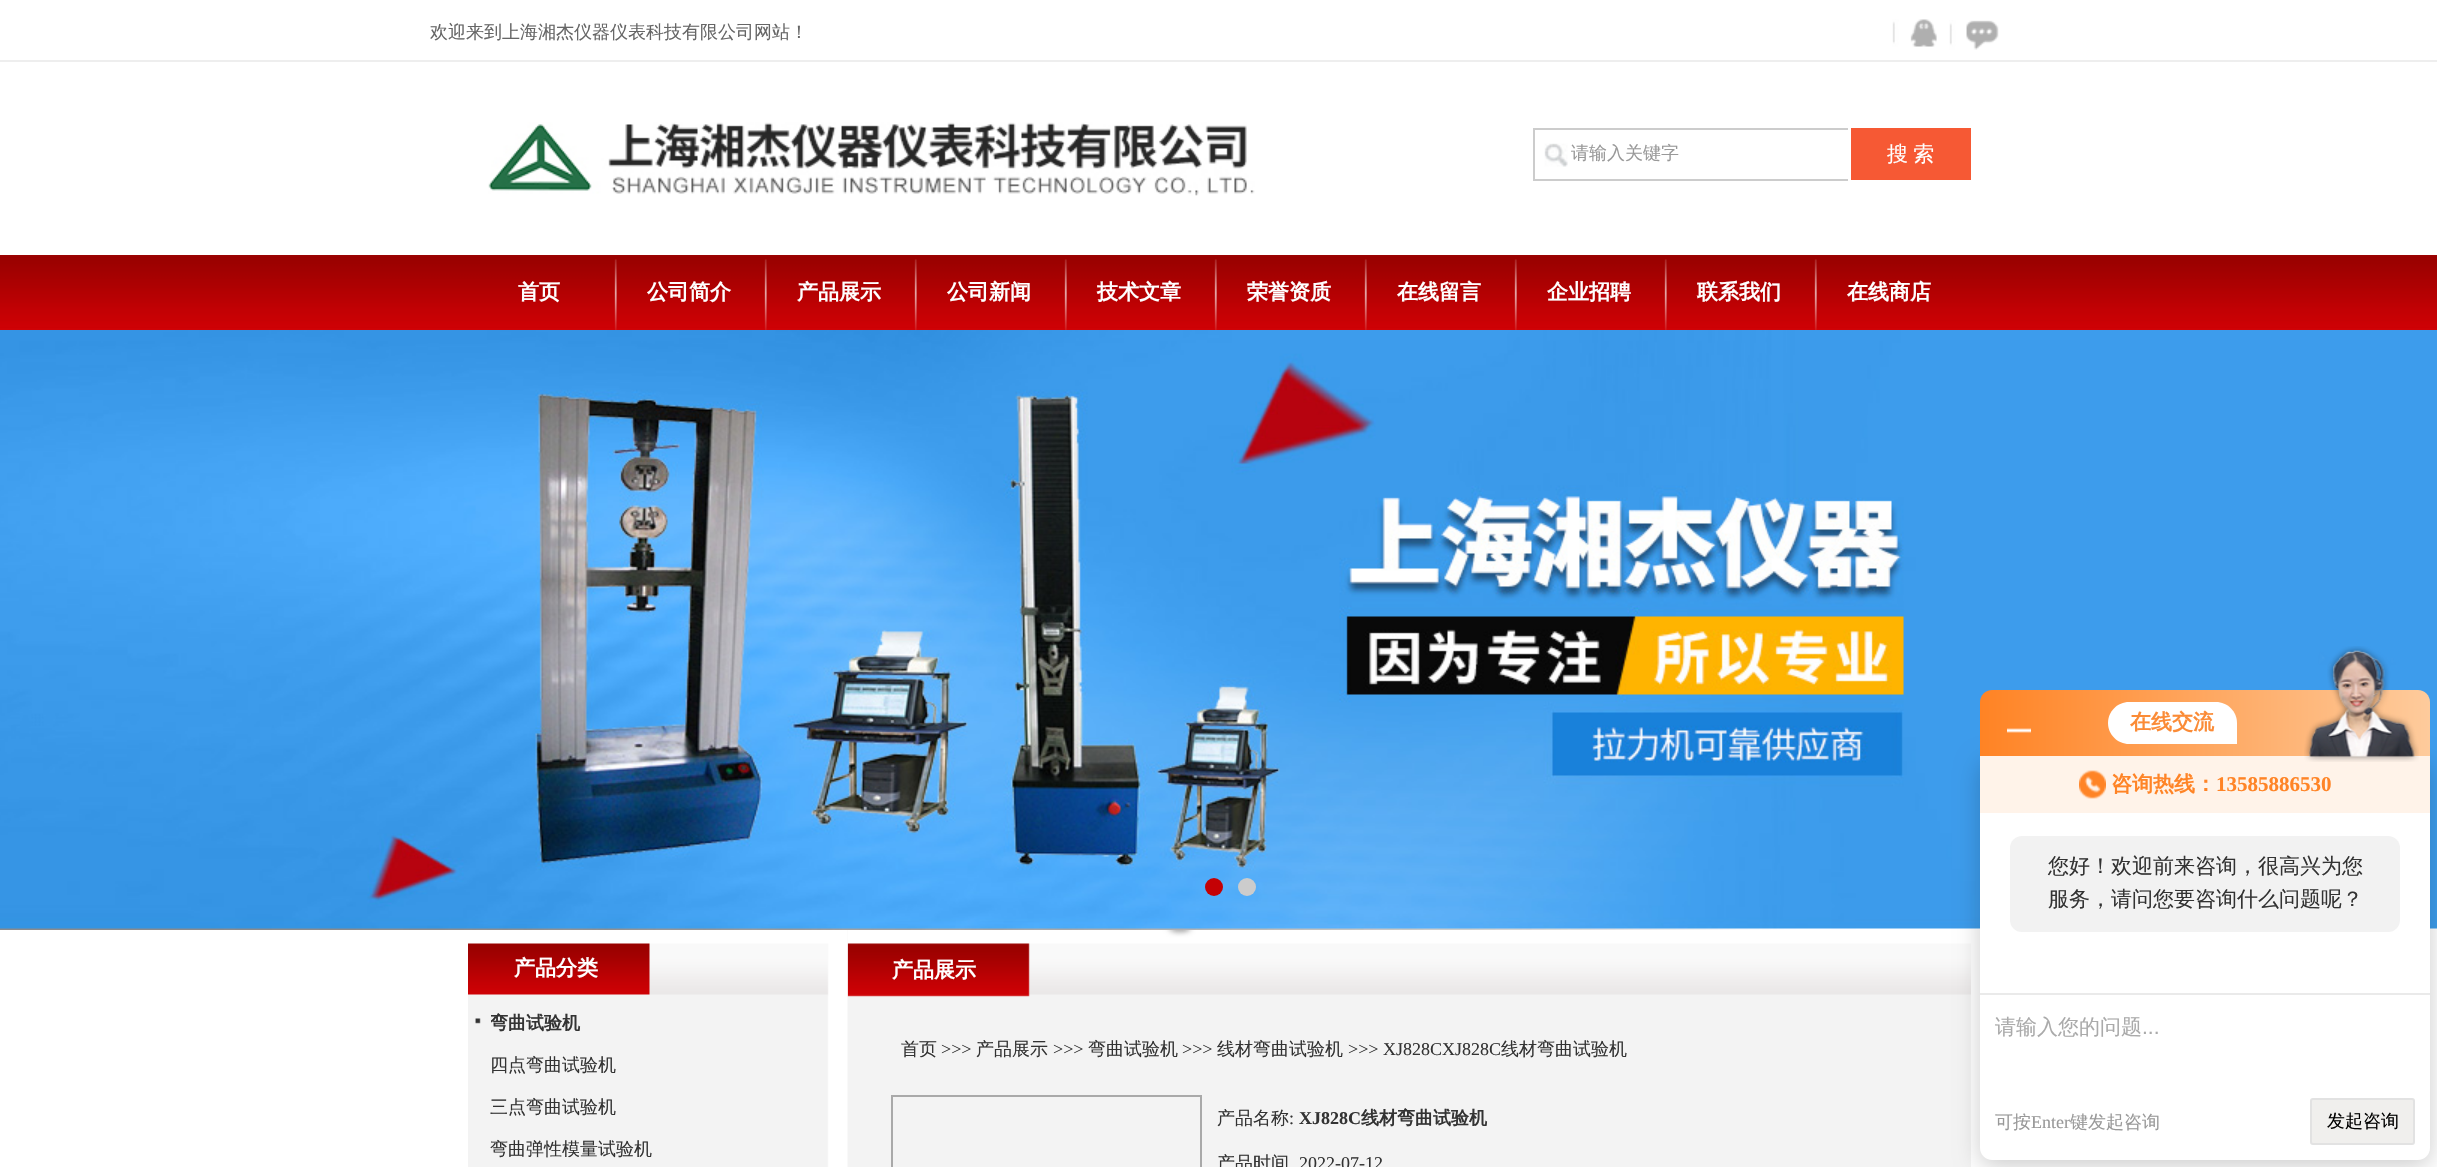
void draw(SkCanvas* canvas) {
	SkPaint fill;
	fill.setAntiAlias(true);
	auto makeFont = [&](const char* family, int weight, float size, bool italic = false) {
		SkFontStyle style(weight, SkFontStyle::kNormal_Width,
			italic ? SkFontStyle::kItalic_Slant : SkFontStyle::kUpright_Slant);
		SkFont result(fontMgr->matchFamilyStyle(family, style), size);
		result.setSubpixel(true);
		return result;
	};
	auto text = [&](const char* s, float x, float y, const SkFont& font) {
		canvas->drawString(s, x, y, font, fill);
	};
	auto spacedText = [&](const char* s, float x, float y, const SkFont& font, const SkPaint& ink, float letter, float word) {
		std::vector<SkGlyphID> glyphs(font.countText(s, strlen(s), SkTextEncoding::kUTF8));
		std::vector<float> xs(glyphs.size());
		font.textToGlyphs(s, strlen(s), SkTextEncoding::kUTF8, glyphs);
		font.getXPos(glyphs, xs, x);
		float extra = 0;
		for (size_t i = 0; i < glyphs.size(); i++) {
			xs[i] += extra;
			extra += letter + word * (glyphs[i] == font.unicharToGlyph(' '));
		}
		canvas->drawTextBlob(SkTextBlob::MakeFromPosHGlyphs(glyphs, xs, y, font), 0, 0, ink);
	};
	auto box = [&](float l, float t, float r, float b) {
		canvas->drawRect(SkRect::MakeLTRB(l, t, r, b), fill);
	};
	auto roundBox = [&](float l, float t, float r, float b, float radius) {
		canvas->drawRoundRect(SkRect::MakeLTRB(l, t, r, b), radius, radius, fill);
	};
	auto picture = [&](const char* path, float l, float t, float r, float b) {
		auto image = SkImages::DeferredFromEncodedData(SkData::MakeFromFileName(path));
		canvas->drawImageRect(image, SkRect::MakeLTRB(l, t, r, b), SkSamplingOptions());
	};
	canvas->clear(0xFFFFFFFF);
	fill.setColor(0xFFEEEEEE);
	box(0, 60, 2437, 62);
	picture("image0.png", 1892, 19, 1937, 47);
	picture("image1.png", 1949, 20, 1999, 50);
	picture("image2.png", 488, 122, 1255, 196);
	picture("image3.png", 1544, 143, 1568, 167);
	fill.setColor(0xFFCCCCCC);
	box(1533, 128, 1848, 130);
	box(1533, 179, 1848, 181);
	box(1533, 128, 1535, 180);
	fill.setColor(0xFFF65934);
	box(1851, 128, 1971, 180);
	picture("image4.png", 0, 255, 2437, 330);
	picture("image5.png", 614, 259, 617, 330);
	picture("image5.png", 764, 259, 767, 330);
	picture("image5.png", 914, 259, 917, 330);
	picture("image6.png", 1064, 259, 1067, 330);
	picture("image6.png", 1214, 259, 1217, 330);
	picture("image6.png", 1364, 259, 1367, 330);
	picture("image6.png", 1514, 259, 1517, 330);
	picture("image5.png", 1664, 259, 1667, 330);
	picture("image6.png", 1814, 259, 1817, 330);
	picture("image7.png", 0, 330, 2437, 930);
	fill.setColor(0xFFC40105);
	canvas->drawCircle(1214, 887, 9, fill);
	fill.setColor(0xFFCCCCCC);
	canvas->drawCircle(1247, 887, 9, fill);
	fill.setColor(0xFFF3F3F3);
	box(847, 930, 1971, 1167);
	picture("image11.png", 847, 930, 1971, 997);
	picture("image8.png", 468, 930, 848, 1167);
	picture("image9.png", 468, 930, 848, 996);
	picture("image10.png", 475, 1018, 481, 1024);
	fill.setStyle(SkPaint::kStroke_Style);
	fill.setStrokeWidth(2);
	fill.setColor(0xFFA9A9A9);
	canvas->drawRect(SkRect::MakeLTRB(892, 1096, 1201, 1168), fill);
	fill.setStyle(SkPaint::kFill_Style);
	fill.setColor(0x33000000);
	fill.setMaskFilter(SkMaskFilter::MakeBlur(kNormal_SkBlurStyle, 12));
	canvas->drawRoundRect(SkRect::MakeLTRB(1980, 762, 2430, 1166), 12, 12, fill);
	fill.setMaskFilter(nullptr);
	{
		const SkColor colors[] = {0xFFFF8324, 0xFFFECB9C};
		const float stops[] = {0, 1};
		const SkPoint ends[] = {{1980, 723}, {2430, 723}};
		fill.setShader(SkGradientShader::MakeLinear(ends, colors, stops, 2, SkTileMode::kClamp));
		fill.setAlpha(255);
	}
	canvas->drawPath(SkPathBuilder().moveTo(1992, 690).lineTo(2418, 690).cubicTo(2424.5f, 690, 2430, 695.5f, 2430, 702).lineTo(2430, 756).lineTo(1980, 756).lineTo(1980, 702).cubicTo(1980, 695.5f, 1985.5f, 690, 1992, 690).close().detach(), fill);
	picture("image12.png", 2007, 728, 2031, 733);
	fill.setShader(nullptr);
	fill.setColor(0xFFFFFFFF);
	canvas->drawPath(SkPathBuilder().moveTo(2129, 702).lineTo(2216, 702).cubicTo(2227.5f, 702, 2237, 711.5f, 2237, 723).lineTo(2237, 744).lineTo(2129, 744).cubicTo(2117.5f, 744, 2108, 734.5f, 2108, 723).cubicTo(2108, 711.5f, 2117.5f, 702, 2129, 702).close().detach(), fill);
	canvas->drawPath(SkPathBuilder().moveTo(1980, 756).lineTo(2430, 756).lineTo(2430, 1148).cubicTo(2430, 1154.5f, 2424.5f, 1160, 2418, 1160).lineTo(1992, 1160).cubicTo(1985.5f, 1160, 1980, 1154.5f, 1980, 1148).close().detach(), fill);
	fill.setColor(0xFFFFF3E9);
	box(1980, 756, 2430, 813);
	picture("image13.png", 2304, 646, 2419, 762);
	picture("image14.png", 2079, 770, 2106, 799);
	fill.setColor(0xFFF2F2F2);
	roundBox(2010, 836, 2400, 932, 12);
	fill.setColor(0xFFEAEAEA);
	box(1980, 993, 2430, 995);
	fill.setColor(0xFFF0EFED);
	canvas->drawRoundRect(SkRect::MakeLTRB(2311, 1099, 2414, 1144), 2, 2, fill);
	fill.setStyle(SkPaint::kStroke_Style);
	fill.setColor(0xFFE2E2E2);
	canvas->drawRoundRect(SkRect::MakeLTRB(2311, 1099, 2414, 1144), 2, 2, fill);
	auto font1 = makeFont("WenQuanYi Zen Hei", 500, 18);
	fill.setStyle(SkPaint::kFill_Style);
	fill.setColor(0xFF666666);
	text("欢迎来到上海湘杰仪器仪表科技有限公司网站！", 430, 38, font1);
	fill.setColor(0xFF999999);
	text("请输入关键字", 1571, 159, font1);
	auto font2 = makeFont("WenQuanYi Zen Hei", 500, 21);
	fill.setColor(0xFFFFFFFF);
	spacedText("搜 索", 1887, 161, font2, fill, 0, -1);
	auto font3 = makeFont("WenQuanYi Zen Hei", 700, 21);
	text("首页", 518, 299, font3);
	text("公司简介", 647, 299, font3);
	text("产品展示", 797, 299, font3);
	text("公司新闻", 947, 299, font3);
	text("技术文章", 1097, 299, font3);
	text("荣誉资质", 1247, 299, font3);
	text("在线留言", 1397, 299, font3);
	text("企业招聘", 1547, 299, font3);
	text("联系我们", 1697, 299, font3);
	text("在线商店", 1847, 299, font3);
	text("产品分类", 514, 975, font3);
	canvas->save();
	canvas->clipRect(SkRect::MakeLTRB(491, 1011, 813, 1037));
	auto font4 = makeFont("WenQuanYi Zen Hei", 700, 18);
	fill.setColor(0xFF333333);
	text("弯曲试验机", 490, 1029, font4);
	canvas->restore();
	text("四点弯曲试验机", 490, 1071, font1);
	text("三点弯曲试验机", 490, 1113, font1);
	text("弯曲弹性模量试验机", 490, 1155, font1);
	fill.setColor(0xFFFFFFFF);
	text("产品展示", 892, 977, font3);
	fill.setColor(0xFF333333);
	text("首页", 901, 1055, font1);
	auto font5 = makeFont("Liberation Serif", 400, 18);
	text(">>>", 941, 1055, font5);
	text("产品展示", 976, 1055, font1);
	text(">>>", 1053, 1055, font5);
	text("弯曲试验机", 1088, 1055, font1);
	text(">>>", 1182, 1055, font5);
	text("线材弯曲试验机", 1217, 1055, font1);
	text(">>> XJ828CXJ828C", 1348, 1055, font5);
	text("线材弯曲试验机", 1501, 1055, font1);
	text("产品名称", 1217, 1124, font1);
	text(":", 1289, 1124, font5);
	auto font6 = makeFont("Liberation Serif", 700, 18);
	text("XJ828C", 1299, 1124, font6);
	text("线材弯曲试验机", 1361, 1124, font4);
	text("产品时间", 1217, 1169, font1);
	text("2022-07-12", 1299, 1169, font5);
	fill.setColor(0xFFFB8B36);
	text("在线交流", 2130, 729, font3);
	fill.setColor(0xFFFF8426);
	text("咨询热线：", 2111, 791, font3);
	auto font7 = makeFont("Liberation Serif", 700, 21);
	text("13585886530", 2216, 791, font7);
	fill.setColor(0xFF333333);
	text("您好！欢迎前来咨询，很高兴为您", 2048, 873, font2);
	text("服务，请问您要咨询什么问题呢？", 2048, 906, font2);
	fill.setColor(0xFFAAAAAA);
	text("请输入您的问题", 1995, 1034, font2);
	auto font8 = makeFont("Liberation Sans", 400, 21);
	text("...", 2142, 1034, font8);
	fill.setColor(0xFF999999);
	text("可按", 1995, 1128, font1);
	text("Enter", 2031, 1128, font5);
	text("键发起咨询", 2070, 1128, font1);
	fill.setColor(0xFF000000);
	text("发起咨询", 2327, 1127, font1);
}
